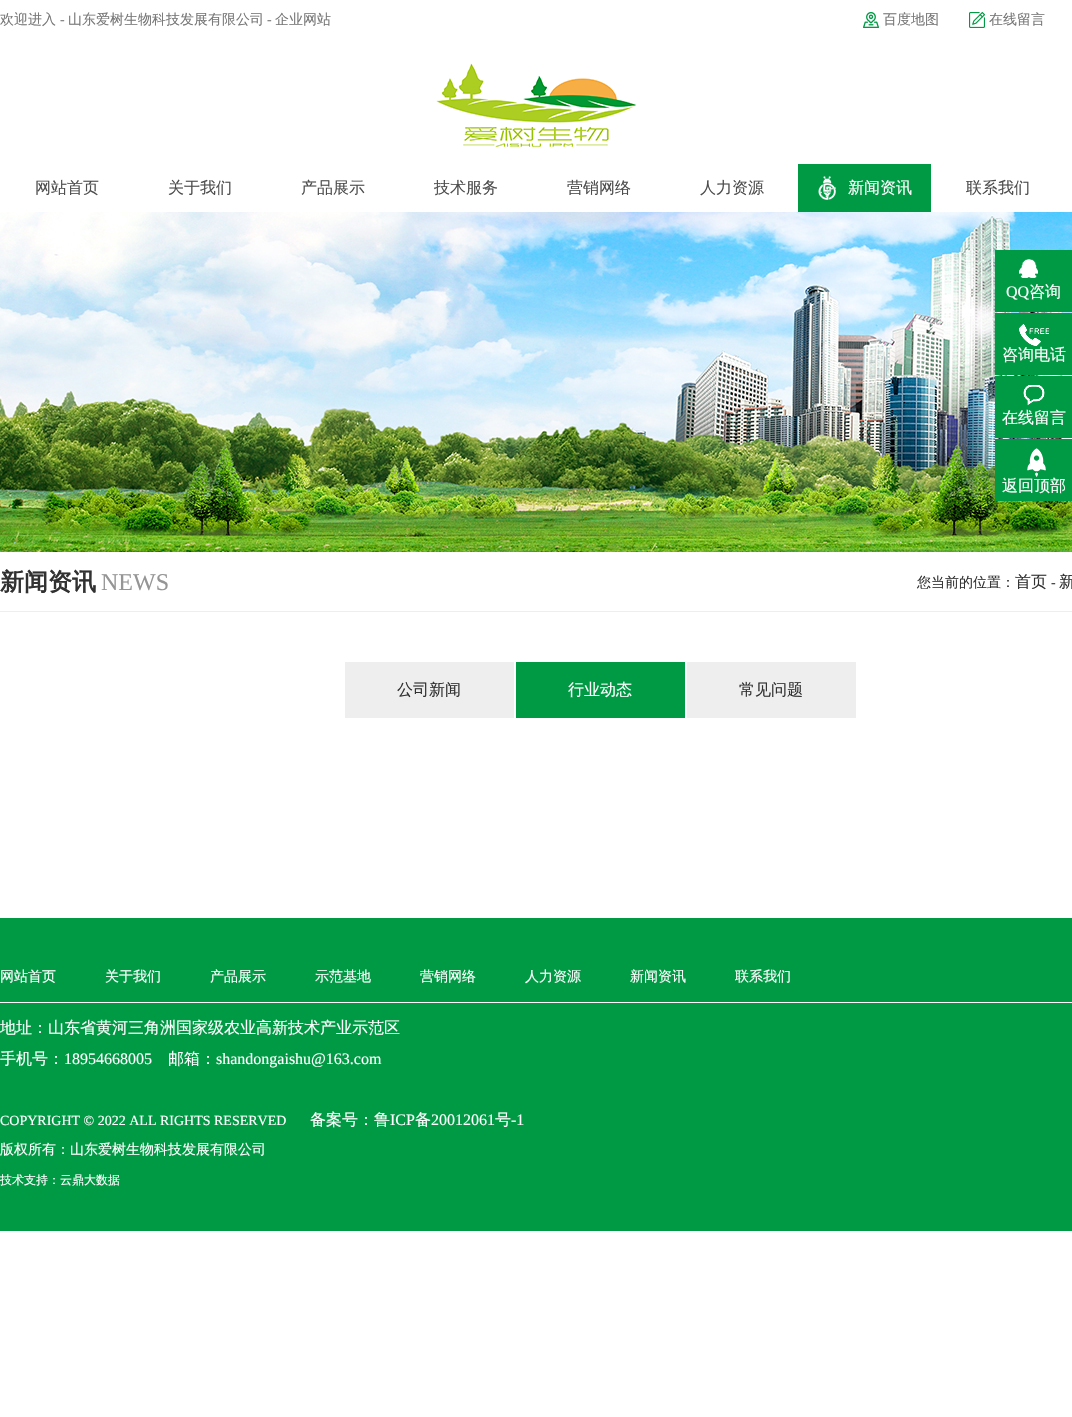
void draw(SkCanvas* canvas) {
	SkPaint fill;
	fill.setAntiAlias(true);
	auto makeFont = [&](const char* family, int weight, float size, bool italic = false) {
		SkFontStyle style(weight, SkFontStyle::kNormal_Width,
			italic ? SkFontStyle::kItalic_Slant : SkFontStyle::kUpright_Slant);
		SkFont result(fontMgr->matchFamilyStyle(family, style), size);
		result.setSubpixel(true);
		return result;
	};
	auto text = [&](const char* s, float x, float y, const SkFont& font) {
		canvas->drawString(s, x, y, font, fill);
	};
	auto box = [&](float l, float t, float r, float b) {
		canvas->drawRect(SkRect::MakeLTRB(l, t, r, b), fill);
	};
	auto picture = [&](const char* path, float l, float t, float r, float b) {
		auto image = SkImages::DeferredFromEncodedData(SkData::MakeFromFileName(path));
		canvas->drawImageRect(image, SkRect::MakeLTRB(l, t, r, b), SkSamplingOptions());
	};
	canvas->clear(0xFFFFFFFF);
	picture("image0.png", 863, 12, 879, 28);
	picture("image1.png", 969, 12, 985, 28);
	picture("image2.png", 436, 63, 636, 148);
	fill.setColor(0xFF009944);
	box(798, 164, 931, 212);
	picture("image3.png", 818, 176, 836, 200);
	picture("image4.png", 0, 212, 1072, 552);
	box(995, 250, 1072, 312);
	picture("image5.png", 1019, 259, 1038, 278);
	box(995, 313, 1072, 375);
	picture("image6.png", 1019, 324, 1049, 346);
	box(995, 376, 1072, 438);
	picture("image7.png", 1023, 385, 1045, 406);
	box(995, 439, 1072, 501);
	picture("image8.png", 1027, 448, 1046, 477);
	fill.setColor(0xFFEEEEEE);
	box(0, 611, 1072, 612);
	box(345, 662, 514, 718);
	fill.setColor(0xFF009944);
	box(516, 662, 685, 718);
	fill.setColor(0xFFEEEEEE);
	box(687, 662, 856, 718);
	fill.setColor(0xFF009944);
	box(0, 918, 1072, 1231);
	fill.setColor(0xFFFFFFFF);
	box(0, 1002, 1072, 1003);
	auto font1 = makeFont("WenQuanYi Zen Hei", 500, 14);
	fill.setColor(0xFF777777);
	text("欢迎进入", 0, 24, font1);
	auto font2 = makeFont("Liberation Serif", 400, 14);
	text("-", 60, 24, font2);
	text("山东爱树生物科技发展有限公司", 68, 24, font1);
	text("-", 267, 24, font2);
	text("企业网站", 275, 24, font1);
	text("百度地图", 883, 24, font1);
	text("在线留言", 989, 24, font1);
	auto font3 = makeFont("WenQuanYi Zen Hei", 500, 16);
	fill.setColor(0xFF4D4D4D);
	text("网站首页", 35, 193, font3);
	text("关于我们", 168, 193, font3);
	text("产品展示", 301, 193, font3);
	text("技术服务", 434, 193, font3);
	text("营销网络", 567, 193, font3);
	text("人力资源", 700, 193, font3);
	fill.setColor(0xFFFFFFFF);
	text("新闻资讯", 848, 193, font3);
	fill.setColor(0xFF4D4D4D);
	text("联系我们", 966, 193, font3);
	auto font4 = makeFont("Liberation Serif", 400, 16);
	fill.setColor(0xFFFFFFFF);
	text("QQ", 1006, 297, font4);
	text("咨询", 1029, 297, font3);
	text("咨询电话", 1002, 360, font3);
	text("在线留言", 1002, 423, font3);
	text("返回顶部", 1002, 491, font3);
	auto font5 = makeFont("WenQuanYi Zen Hei", 700, 24);
	fill.setColor(0xFF313131);
	text("新闻资讯", 0, 590, font5);
	auto font6 = makeFont("Liberation Serif", 400, 24);
	fill.setColor(0xFF959595);
	text("NEWS", 101, 590, font6);
	fill.setColor(0xFF313131);
	text("您当前的位置：", 917, 587, font1);
	text("首页", 1015, 587, font3);
	text("-", 1051, 587, font2);
	text("新", 1059, 587, font3);
	text("公司新闻", 397, 695, font3);
	fill.setColor(0xFFFFFFFF);
	text("行业动态", 568, 695, font3);
	fill.setColor(0xFF313131);
	text("常见问题", 739, 695, font3);
	fill.setColor(0xFFFFFFFF);
	text("网站首页", 0, 981, font1);
	text("关于我们", 105, 981, font1);
	text("产品展示", 210, 981, font1);
	text("示范基地", 315, 981, font1);
	text("营销网络", 420, 981, font1);
	text("人力资源", 525, 981, font1);
	text("新闻资讯", 630, 981, font1);
	text("联系我们", 735, 981, font1);
	text("地址：山东省黄河三角洲国家级农业高新技术产业示范区", 0, 1033, font3);
	text("手机号：", 0, 1064, font3);
	text("18954668005", 64, 1064, font4);
	text("邮箱：", 168, 1064, font3);
	text("shandongaishu@163.com", 216, 1064, font4);
	text("COPYRIGHT © 2022 ALL RIGHTS RESERVED", 0, 1125, font2);
	text("备案号：鲁", 310, 1125, font3);
	text("ICP", 390, 1125, font4);
	text("备", 415, 1125, font3);
	text("20012061", 431, 1125, font4);
	text("号", 495, 1125, font3);
	text("-1", 511, 1125, font4);
	text("版权所有：山东爱树生物科技发展有限公司", 0, 1154, font1);
	auto font7 = makeFont("WenQuanYi Zen Hei", 500, 12);
	text("技术支持：云鼎大数据", 0, 1184, font7);
}
